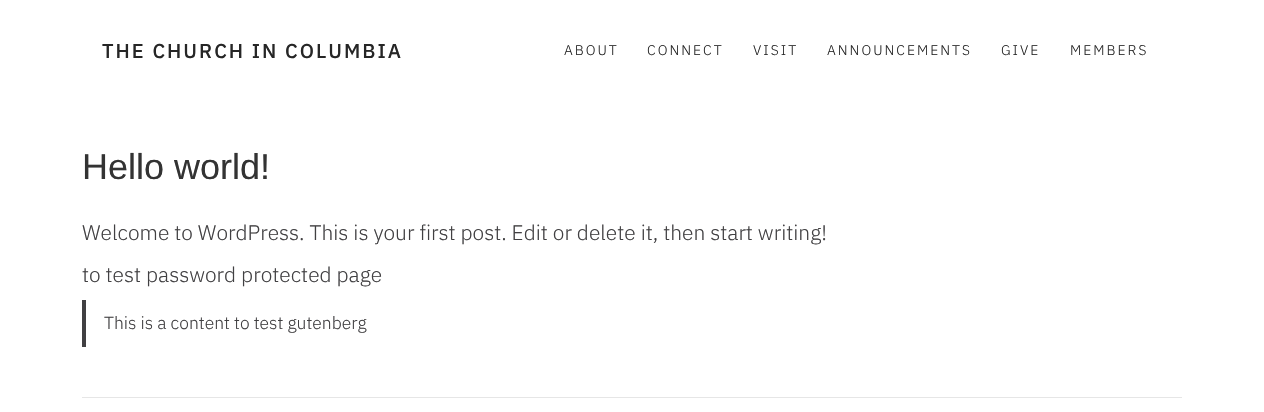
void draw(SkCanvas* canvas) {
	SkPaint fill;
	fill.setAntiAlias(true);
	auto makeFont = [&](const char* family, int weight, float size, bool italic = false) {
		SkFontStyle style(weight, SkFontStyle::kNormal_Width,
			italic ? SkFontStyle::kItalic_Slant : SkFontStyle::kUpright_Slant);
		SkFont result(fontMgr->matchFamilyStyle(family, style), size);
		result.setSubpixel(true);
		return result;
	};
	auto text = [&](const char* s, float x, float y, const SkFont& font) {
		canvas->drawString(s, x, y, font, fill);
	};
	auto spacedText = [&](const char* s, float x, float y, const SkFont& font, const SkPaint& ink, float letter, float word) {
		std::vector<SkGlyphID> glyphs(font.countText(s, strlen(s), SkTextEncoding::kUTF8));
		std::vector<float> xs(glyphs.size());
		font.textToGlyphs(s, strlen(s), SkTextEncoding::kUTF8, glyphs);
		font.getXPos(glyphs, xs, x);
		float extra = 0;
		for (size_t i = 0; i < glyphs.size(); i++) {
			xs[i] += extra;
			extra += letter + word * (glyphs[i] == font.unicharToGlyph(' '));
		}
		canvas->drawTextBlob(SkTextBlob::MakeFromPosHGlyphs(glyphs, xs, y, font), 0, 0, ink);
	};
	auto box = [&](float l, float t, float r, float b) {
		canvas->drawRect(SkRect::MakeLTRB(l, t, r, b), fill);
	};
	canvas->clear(0xFFFFFFFF);
	fill.setColor(0xFF414042);
	box(82, 300, 86, 347);
	fill.setColor(0xFFE6E6E6);
	box(82, 397, 1182, 398);
	auto font1 = makeFont("IBM Plex Sans", 500, 20);
	fill.setColor(0xFF262626);
	spacedText("THE CHURCH IN COLUMBIA", 102, 58, font1, fill, 2, 0);
	auto font2 = makeFont("IBM Plex Sans", 300, 14);
	spacedText("ABOUT", 564, 55, font2, fill, 2, 0);
	spacedText("CONNECT", 647, 55, font2, fill, 2, 0);
	spacedText("VISIT", 753, 55, font2, fill, 2, 0);
	spacedText("ANNOUNCEMENTS", 827, 55, font2, fill, 2, 0);
	spacedText("GIVE", 1001, 55, font2, fill, 2, 0);
	spacedText("MEMBERS", 1070, 55, font2, fill, 2, 0);
	auto font3 = makeFont("Liberation Sans", 400, 36);
	fill.setColor(0xFF333333);
	text("Hello world!", 82, 179, font3);
	auto font4 = makeFont("IBM Plex Sans", 300, 21);
	fill.setColor(0xFF414042);
	text("Welcome to WordPress. This is your first post. Edit or delete it, then start writing!", 82, 240, font4);
	text("to test password protected page", 82, 282, font4);
	auto font5 = makeFont("IBM Plex Sans", 300, 17.5f);
	text("This is a content to test gutenberg", 104, 329, font5);
}
